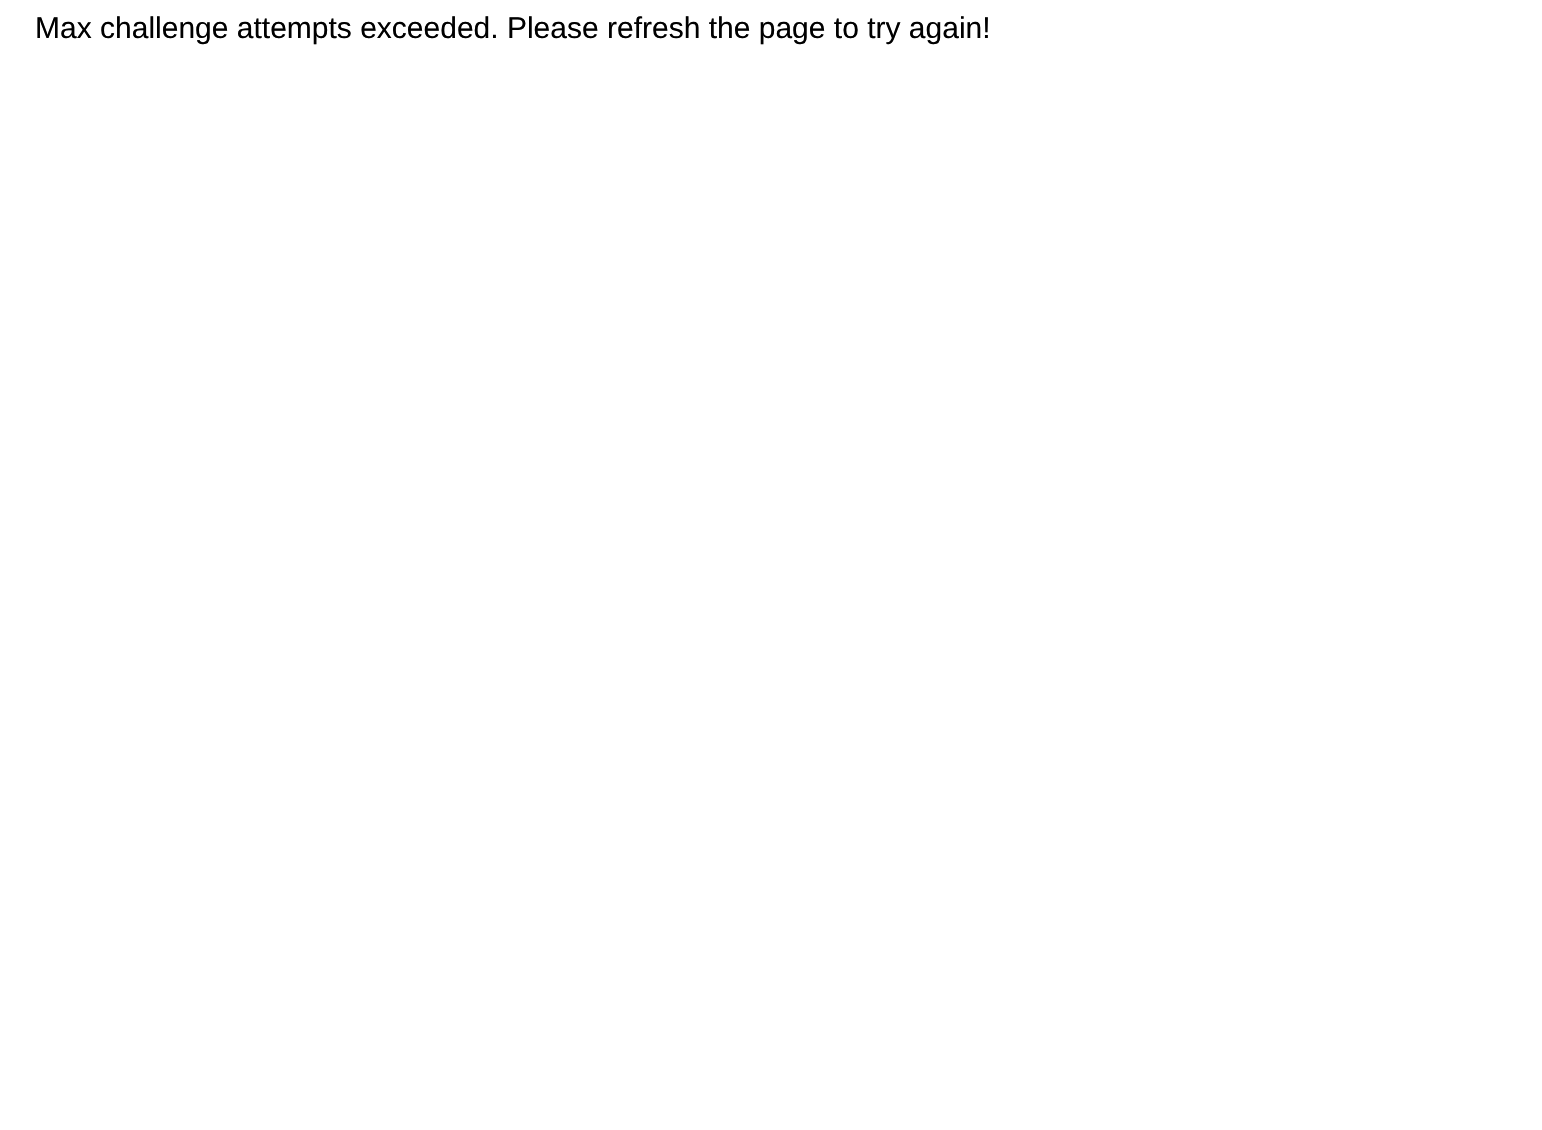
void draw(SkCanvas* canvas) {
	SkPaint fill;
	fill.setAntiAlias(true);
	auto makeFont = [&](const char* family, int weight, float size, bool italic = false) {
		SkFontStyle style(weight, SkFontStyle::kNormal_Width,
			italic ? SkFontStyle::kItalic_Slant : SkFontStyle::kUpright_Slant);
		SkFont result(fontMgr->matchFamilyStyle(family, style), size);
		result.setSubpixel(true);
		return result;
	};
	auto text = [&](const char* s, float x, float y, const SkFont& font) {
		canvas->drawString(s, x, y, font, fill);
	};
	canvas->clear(0xFFFFFFFF);
	auto font1 = makeFont("Liberation Sans", 400, 30);
	fill.setColor(0xFF000000);
	text("Max challenge attempts exceeded. Please refresh the page to try again!", 35, 38, font1);
}
